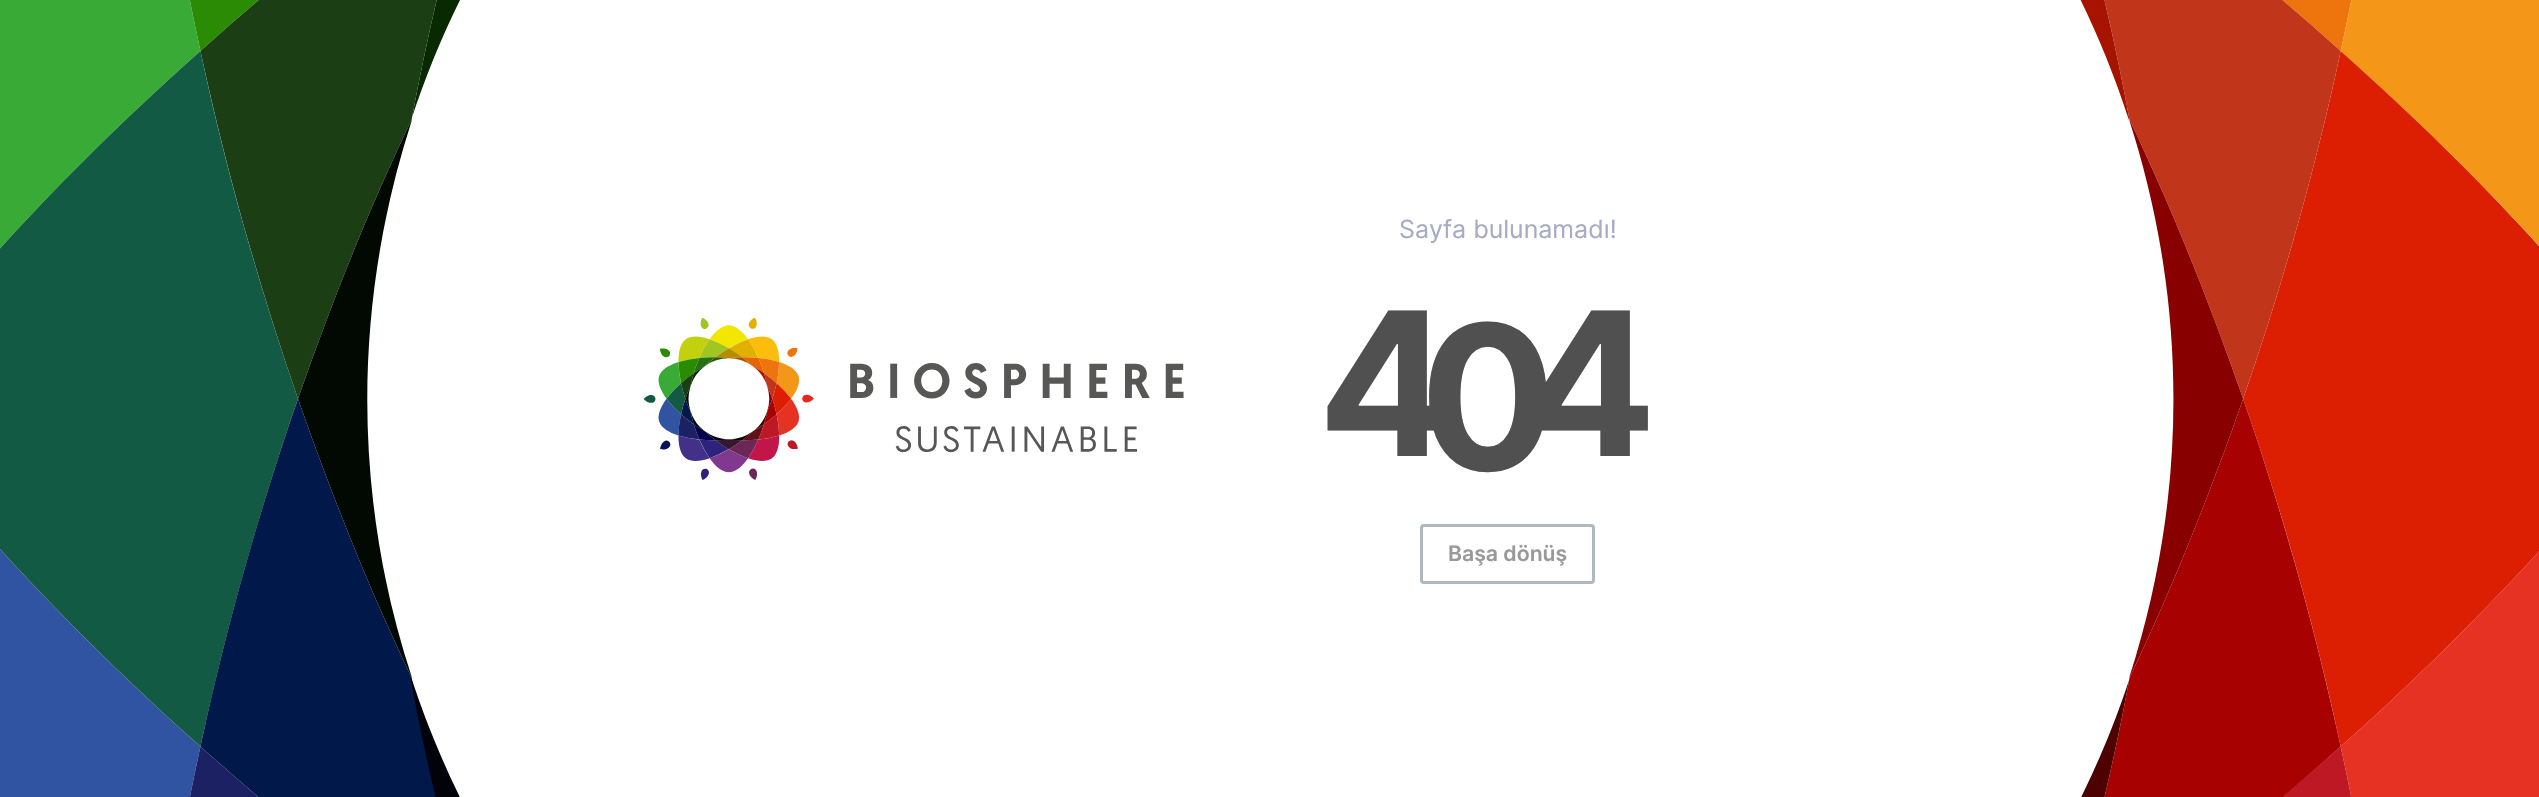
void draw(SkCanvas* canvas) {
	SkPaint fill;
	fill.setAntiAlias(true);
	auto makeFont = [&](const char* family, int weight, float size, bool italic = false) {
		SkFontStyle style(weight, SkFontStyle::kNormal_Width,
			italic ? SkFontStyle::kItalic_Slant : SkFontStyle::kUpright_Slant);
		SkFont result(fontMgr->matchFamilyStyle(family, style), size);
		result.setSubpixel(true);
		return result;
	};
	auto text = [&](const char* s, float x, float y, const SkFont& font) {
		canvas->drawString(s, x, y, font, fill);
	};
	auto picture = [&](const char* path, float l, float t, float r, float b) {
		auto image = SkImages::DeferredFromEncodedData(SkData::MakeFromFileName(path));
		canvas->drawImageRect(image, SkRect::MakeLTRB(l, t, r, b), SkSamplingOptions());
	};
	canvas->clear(0xFFFFFFFF);
	picture("image0.png", 0, 0, 2539, 797);
	picture("image1.png", 644, 318, 1184, 480);
	fill.setStyle(SkPaint::kStroke_Style);
	fill.setStrokeWidth(3);
	fill.setColor(0xFFAFB8BD);
	canvas->drawRoundRect(SkRect::MakeLTRB(1421.5f, 525.5f, 1593.5f, 582.5f), 2.5f, 2.5f, fill);
	auto font1 = makeFont("Inter", 400, 25);
	fill.setStyle(SkPaint::kFill_Style);
	fill.setColor(0xFFA7ABC3);
	text("Sayfa bulunamadı!", 1399, 238, font1);
	auto font2 = makeFont("Inter", 700, 200);
	fill.setColor(0xFF505050);
	text("4", 1318, 456, font2);
	text("4", 1521, 456, font2);
	text("0", 1419, 469, font2);
	auto font3 = makeFont("Inter", 600, 21.25f);
	fill.setColor(0xFF999999);
	text("Başa dönüş", 1448, 561, font3);
}
